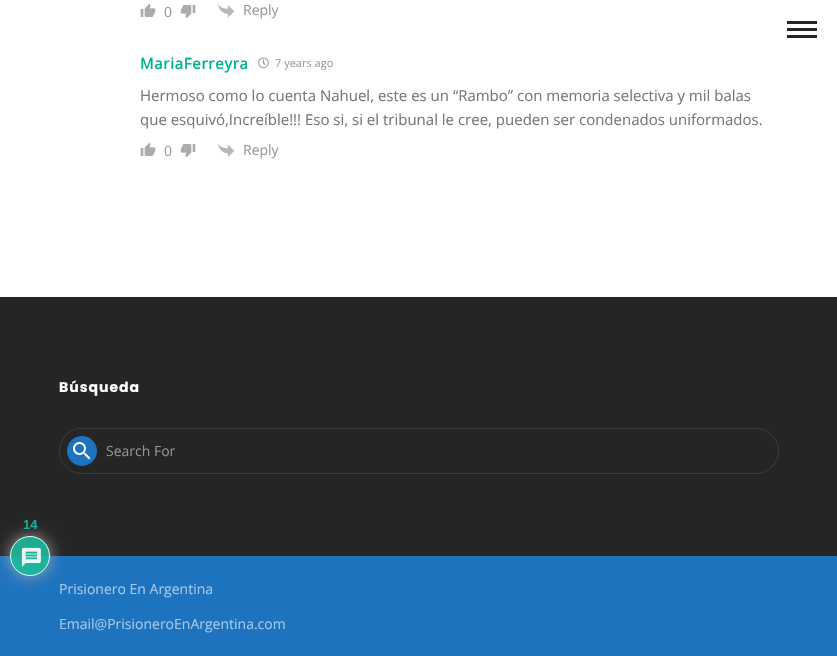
void draw(SkCanvas* canvas) {
	SkPaint fill;
	fill.setAntiAlias(true);
	auto makeFont = [&](const char* family, int weight, float size, bool italic = false) {
		SkFontStyle style(weight, SkFontStyle::kNormal_Width,
			italic ? SkFontStyle::kItalic_Slant : SkFontStyle::kUpright_Slant);
		SkFont result(fontMgr->matchFamilyStyle(family, style), size);
		result.setSubpixel(true);
		return result;
	};
	auto text = [&](const char* s, float x, float y, const SkFont& font) {
		canvas->drawString(s, x, y, font, fill);
	};
	auto spacedText = [&](const char* s, float x, float y, const SkFont& font, const SkPaint& ink, float letter, float word) {
		std::vector<SkGlyphID> glyphs(font.countText(s, strlen(s), SkTextEncoding::kUTF8));
		std::vector<float> xs(glyphs.size());
		font.textToGlyphs(s, strlen(s), SkTextEncoding::kUTF8, glyphs);
		font.getXPos(glyphs, xs, x);
		float extra = 0;
		for (size_t i = 0; i < glyphs.size(); i++) {
			xs[i] += extra;
			extra += letter + word * (glyphs[i] == font.unicharToGlyph(' '));
		}
		canvas->drawTextBlob(SkTextBlob::MakeFromPosHGlyphs(glyphs, xs, y, font), 0, 0, ink);
	};
	auto box = [&](float l, float t, float r, float b) {
		canvas->drawRect(SkRect::MakeLTRB(l, t, r, b), fill);
	};
	auto picture = [&](const char* path, float l, float t, float r, float b) {
		auto image = SkImages::DeferredFromEncodedData(SkData::MakeFromFileName(path));
		canvas->drawImageRect(image, SkRect::MakeLTRB(l, t, r, b), SkSamplingOptions());
	};
	canvas->clear(0xFFFFFFFF);
	fill.setColor(0xFF252525);
	box(0, 297, 837, 556);
	fill.setColor(0xFF1E73BE);
	box(0, 556, 837, 656);
	canvas->save();
	canvas->clipPath(SkPathBuilder(SkPathFillType::kEvenOdd).moveTo(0, 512).lineTo(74, 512).lineTo(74, 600).lineTo(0, 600).close().moveTo(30, 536).cubicTo(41, 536, 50, 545, 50, 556).cubicTo(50, 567, 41, 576, 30, 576).cubicTo(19, 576, 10, 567, 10, 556).cubicTo(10, 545, 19, 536, 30, 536).close().detach(), true);
	fill.setColor(0xE6AAAAAA);
	fill.setMaskFilter(SkMaskFilter::MakeBlur(kNormal_SkBlurStyle, 7.5f));
	canvas->drawRoundRect(SkRect::MakeLTRB(10, 536, 50, 576), 20, 20, fill);
	fill.setMaskFilter(nullptr);
	canvas->restore();
	fill.setColor(0xE61DB99A);
	canvas->drawCircle(30, 556, 20, fill);
	fill.setStyle(SkPaint::kStroke_Style);
	fill.setStrokeWidth(1);
	fill.setColor(0xE6FFFFFF);
	canvas->drawCircle(30, 556, 19.5f, fill);
	picture("image0.png", 21, 547, 41, 567);
	picture("image1.png", 140, 3, 156, 17);
	picture("image2.png", 180, 5, 196, 19);
	picture("image3.png", 217, 4, 235, 18);
	picture("image4.png", 258, 57, 269, 69);
	picture("image1.png", 140, 142, 156, 156);
	picture("image2.png", 180, 144, 196, 158);
	picture("image5.png", 218, 144, 235, 157);
	fill.setStyle(SkPaint::kFill_Style);
	fill.setColor(0xFF252525);
	box(787, 28, 817, 31);
	box(787, 21, 817, 24);
	box(787, 35, 817, 38);
	fill.setStyle(SkPaint::kStroke_Style);
	fill.setColor(0xFF3B3B3B);
	canvas->drawRoundRect(SkRect::MakeLTRB(59.5f, 428.5f, 778.5f, 473.5f), 22.5f, 22.5f, fill);
	fill.setStyle(SkPaint::kFill_Style);
	fill.setColor(0xFF1E73BE);
	canvas->drawCircle(82, 451, 15, fill);
	picture("image6.png", 73, 442, 91, 460);
	auto font1 = makeFont("Liberation Sans", 700, 13);
	fill.setColor(0xFF1EAA8E);
	text("14", 23, 529, font1);
	auto font2 = makeFont("Open Sans", 400, 14);
	fill.setColor(0xFF999999);
	text("0", 164, 17, font2);
	text("Reply", 243, 15, font2);
	auto font3 = makeFont("Open Sans", 700, 15);
	fill.setColor(0xFF00B38F);
	spacedText("MariaFerreyra", 140, 69, font3, fill, 0.75f, 0);
	auto font4 = makeFont("Open Sans", 400, 11);
	fill.setColor(0xFF999999);
	text("7 years ago", 275, 67, font4);
	auto font5 = makeFont("Open Sans", 400, 15);
	fill.setColor(0xFF777777);
	text("Hermoso como lo cuenta Nahuel, este es un “Rambo” con memoria selectiva y mil balas", 140, 101, font5);
	text("que esquivó,Increíble!!! Eso si, si el tribunal le cree, pueden ser condenados uniformados.", 140, 125, font5);
	fill.setColor(0xFF999999);
	text("0", 164, 156, font2);
	text("Reply", 243, 155, font2);
	auto font6 = makeFont("Poppins", 700, 14);
	fill.setColor(0xFFFFFFFF);
	spacedText("Búsqueda", 59, 392, font6, fill, 1, 0);
	fill.setColor(0xFF929292);
	text("Search For", 106, 456, font2);
	fill.setColor(0xFFA5C7E5);
	text("Prisionero En Argentina", 59, 594, font2);
	text("Email@PrisioneroEnArgentina.com", 59, 629, font2);
}
